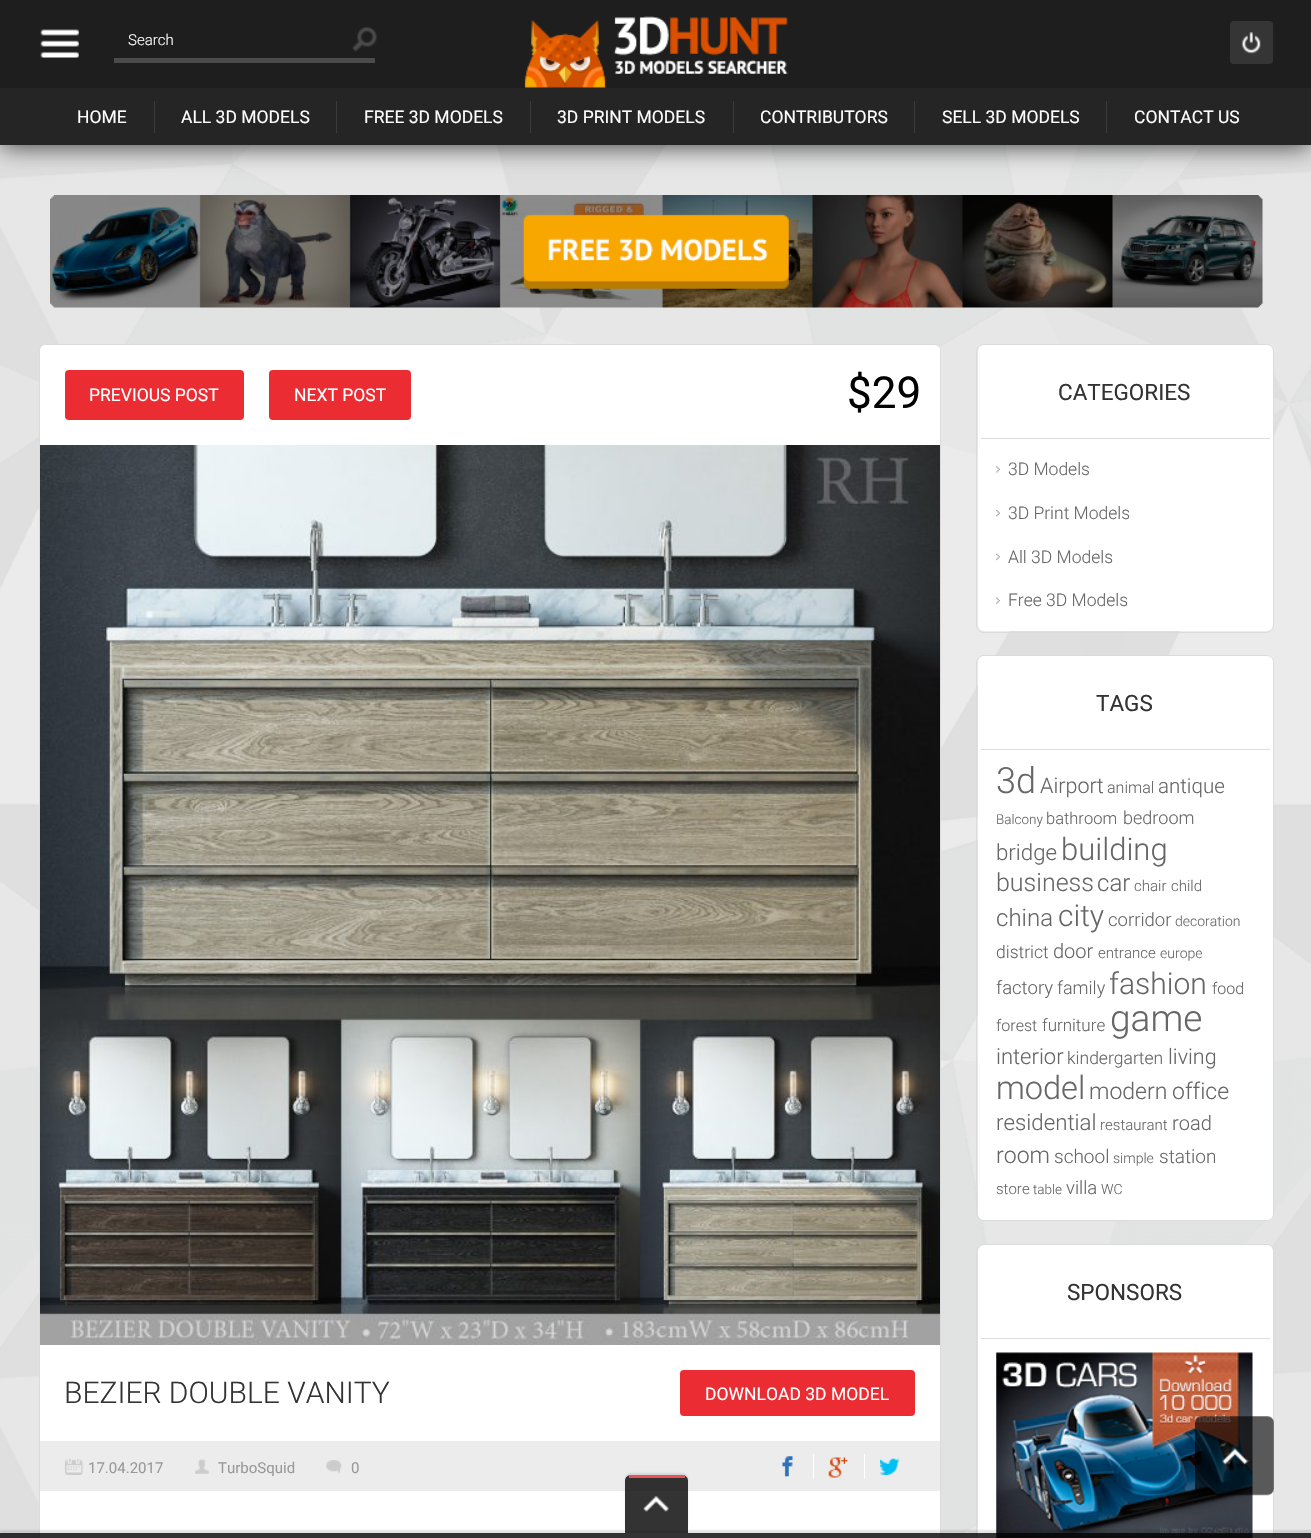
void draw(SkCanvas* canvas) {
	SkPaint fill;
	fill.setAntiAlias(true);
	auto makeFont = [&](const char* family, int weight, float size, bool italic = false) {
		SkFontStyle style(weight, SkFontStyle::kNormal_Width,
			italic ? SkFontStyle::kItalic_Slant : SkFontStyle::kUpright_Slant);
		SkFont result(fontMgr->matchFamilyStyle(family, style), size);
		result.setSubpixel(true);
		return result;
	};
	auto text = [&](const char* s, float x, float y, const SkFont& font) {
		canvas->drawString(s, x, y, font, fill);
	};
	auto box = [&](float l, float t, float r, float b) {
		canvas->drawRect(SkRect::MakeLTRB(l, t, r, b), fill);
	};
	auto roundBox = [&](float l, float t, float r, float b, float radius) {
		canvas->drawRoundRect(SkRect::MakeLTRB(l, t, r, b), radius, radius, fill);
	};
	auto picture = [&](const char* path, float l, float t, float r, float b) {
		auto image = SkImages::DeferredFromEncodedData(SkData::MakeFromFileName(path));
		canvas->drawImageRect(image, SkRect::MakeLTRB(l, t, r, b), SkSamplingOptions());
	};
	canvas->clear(0xFFECECEC);
	picture("image0.png", 0, 145, 1311, 1538);
	fill.setColor(0xCC000000);
	fill.setMaskFilter(SkMaskFilter::MakeBlur(kNormal_SkBlurStyle, 12.5f));
	canvas->drawRect(SkRect::MakeLTRB(0, 0, 1311, 145), fill);
	fill.setMaskFilter(nullptr);
	fill.setColor(0xFF1E1E1E);
	box(0, 0, 1311, 88);
	picture("image1.png", 40, 29, 79, 58);
	fill.setColor(0xFF4B4B4B);
	box(114, 58, 375, 63);
	picture("image2.png", 352, 27, 377, 52);
	picture("image3.png", 524, 16, 788, 88);
	fill.setColor(0xFF353535);
	roundBox(1230, 21, 1273, 64, 4);
	picture("image4.png", 1241, 32, 1261, 54);
	fill.setColor(0xFF252525);
	box(0, 88, 1311, 145);
	fill.setColor(0xFF3B3B3B);
	box(154, 101, 155, 133);
	box(336, 101, 337, 133);
	box(530, 101, 531, 133);
	box(733, 101, 734, 133);
	box(914, 101, 915, 133);
	box(1106, 101, 1107, 133);
	picture("image5.png", 50, 195, 1263, 308);
	fill.setStyle(SkPaint::kStroke_Style);
	fill.setStrokeWidth(1);
	fill.setColor(0xFFDCDBDB);
	canvas->drawRoundRect(SkRect::MakeLTRB(39.5f, 344.5f, 940.5f, 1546.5f), 7.5f, 7.5f, fill);
	fill.setStyle(SkPaint::kFill_Style);
	fill.setColor(0xFFFFFFFF);
	roundBox(40, 345, 940, 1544, 6);
	canvas->drawPath(SkPathBuilder().moveTo(46, 345).lineTo(934, 345).cubicTo(937.5f, 345, 940, 347.5f, 940, 351).lineTo(940, 445).lineTo(46, 445).cubicTo(42.5f, 445, 40, 442.5f, 40, 439).lineTo(40, 351).cubicTo(40, 347.5f, 42.5f, 345, 46, 345).close().detach(), fill);
	fill.setColor(0xFFEB2C33);
	roundBox(65, 370, 244, 420, 4);
	roundBox(269, 370, 411, 420, 4);
	picture("image6.png", 40, 445, 940, 1345);
	roundBox(680, 1370, 915, 1416, 4);
	fill.setColor(0xFFECECEC);
	box(40, 1441, 940, 1491);
	picture("image7.png", 65, 1458, 83, 1475);
	picture("image8.png", 195, 1459, 209, 1474);
	picture("image9.png", 326, 1460, 342, 1474);
	picture("image10.png", 782, 1456, 793, 1477);
	fill.setColor(0xFFFFFFFF);
	box(813, 1454, 814, 1479);
	picture("image11.png", 828, 1457, 848, 1478);
	box(864, 1454, 865, 1479);
	picture("image12.png", 880, 1458, 900, 1476);
	fill.setStyle(SkPaint::kStroke_Style);
	fill.setColor(0xFFDCDBDB);
	canvas->drawRoundRect(SkRect::MakeLTRB(976.5f, 344.5f, 1273.5f, 632.5f), 7.5f, 7.5f, fill);
	fill.setStyle(SkPaint::kFill_Style);
	fill.setColor(0xFFFFFFFF);
	roundBox(978, 345, 1273, 631, 6);
	fill.setColor(0xFFDCDBDB);
	box(981, 438, 1270, 439);
	picture("image13.png", 996, 466, 1000, 473);
	picture("image14.png", 996, 510, 1000, 517);
	picture("image15.png", 996, 553, 1000, 561);
	picture("image16.png", 996, 597, 1000, 604);
	fill.setStyle(SkPaint::kStroke_Style);
	canvas->drawRoundRect(SkRect::MakeLTRB(976.5f, 655.5f, 1273.5f, 1220.5f), 7.5f, 7.5f, fill);
	fill.setStyle(SkPaint::kFill_Style);
	fill.setColor(0xFFFFFFFF);
	roundBox(978, 656, 1273, 1220, 6);
	fill.setColor(0xFFDCDBDB);
	box(981, 749, 1270, 750);
	fill.setStyle(SkPaint::kStroke_Style);
	canvas->drawRoundRect(SkRect::MakeLTRB(976.5f, 1244.5f, 1273.5f, 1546.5f), 7.5f, 7.5f, fill);
	fill.setStyle(SkPaint::kFill_Style);
	fill.setColor(0xFFFFFFFF);
	roundBox(978, 1245, 1273, 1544, 6);
	fill.setColor(0xFFDCDBDB);
	box(981, 1338, 1270, 1339);
	picture("image17.png", 996, 1352, 1253, 1538);
	canvas->save();
	canvas->clipRect(SkRect::MakeLTRB(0, 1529, 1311, 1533));
	fill.setColor(0x1A000000);
	fill.setMaskFilter(SkMaskFilter::MakeBlur(kNormal_SkBlurStyle, 1));
	canvas->drawRect(SkRect::MakeLTRB(0, 1530, 1311, 1536), fill);
	fill.setMaskFilter(nullptr);
	canvas->restore();
	picture("image18.png", 1195, 1416, 1274, 1496);
	fill.setColor(0xCC000000);
	box(0, 1533, 1311, 1538);
	canvas->save();
	canvas->clipPath(SkPathBuilder(SkPathFillType::kEvenOdd).moveTo(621, 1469).lineTo(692, 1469).lineTo(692, 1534).lineTo(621, 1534).close().moveTo(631, 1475).lineTo(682, 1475).cubicTo(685.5f, 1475, 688, 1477.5f, 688, 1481).lineTo(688, 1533).lineTo(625, 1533).lineTo(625, 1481).cubicTo(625, 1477.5f, 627.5f, 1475, 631, 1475).close().detach(), true);
	fill.setColor(0x1A000000);
	fill.setMaskFilter(SkMaskFilter::MakeBlur(kNormal_SkBlurStyle, 1));
	canvas->drawRoundRect(SkRect::MakeLTRB(625, 1473, 688, 1530), 6, 6, fill);
	fill.setMaskFilter(nullptr);
	canvas->restore();
	fill.setColor(0xCC000000);
	canvas->drawPath(SkPathBuilder().moveTo(631, 1475).lineTo(682, 1475).cubicTo(685.5f, 1475, 688, 1477.5f, 688, 1481).lineTo(688, 1533).lineTo(625, 1533).lineTo(625, 1481).cubicTo(625, 1477.5f, 627.5f, 1475, 631, 1475).close().detach(), fill);
	picture("image19.png", 643, 1496, 669, 1512);
	fill.setColor(0xFFEB5258);
	box(629, 1475, 685, 1478);
	auto font1 = makeFont("Roboto", 300, 15);
	fill.setColor(0xFFFFFFFF);
	text("Search", 128, 45, font1);
	auto font2 = makeFont("Roboto", 400, 17.5f);
	text("HOME", 77, 123, font2);
	text("ALL 3D MODELS", 181, 123, font2);
	text("FREE 3D MODELS", 364, 123, font2);
	text("3D PRINT MODELS", 557, 123, font2);
	text("CONTRIBUTORS", 760, 123, font2);
	text("SELL 3D MODELS", 942, 123, font2);
	text("CONTACT US", 1134, 123, font2);
	text("PREVIOUS POST", 89, 401, font2);
	text("NEXT POST", 294, 401, font2);
	auto font3 = makeFont("Roboto", 400, 44);
	fill.setColor(0xFF000000);
	text("$29", 847, 408, font3);
	auto font4 = makeFont("Roboto", 300, 30);
	fill.setColor(0xFF333333);
	text("BEZIER DOUBLE VANITY", 64, 1403, font4);
	fill.setColor(0xFFFFFFFF);
	text("DOWNLOAD 3D MODEL", 705, 1400, font2);
	auto font5 = makeFont("Roboto", 400, 15);
	fill.setColor(0xFF999999);
	text("17.04.2017", 88, 1473, font5);
	text("TurboSquid", 218, 1473, font5);
	text("0", 351, 1473, font5);
	auto font6 = makeFont("Roboto", 400, 22.5f);
	fill.setColor(0xFF333333);
	text("CATEGORIES", 1058, 400, font6);
	auto font7 = makeFont("Roboto", 300, 17.5f);
	fill.setColor(0xFF666666);
	text("3D Models", 1008, 475, font7);
	text("3D Print Models", 1008, 519, font7);
	text("All 3D Models", 1008, 563, font7);
	text("Free 3D Models", 1008, 606, font7);
	fill.setColor(0xFF333333);
	text("TAGS", 1096, 711, font6);
	auto font8 = makeFont("Roboto", 300, 36);
	fill.setColor(0xFF666666);
	text("3d", 996, 793, font8);
	auto font9 = makeFont("Roboto", 300, 21.5f);
	text("Airport", 1040, 793, font9);
	auto font10 = makeFont("Roboto", 300, 16);
	text("animal", 1107, 793, font10);
	auto font11 = makeFont("Roboto", 300, 20.5f);
	text("antique", 1158, 793, font11);
	auto font12 = makeFont("Roboto", 300, 13.5f);
	text("Balcony", 996, 824, font12);
	auto font13 = makeFont("Roboto", 300, 16.5f);
	text("bathroom", 1046, 824, font13);
	auto font14 = makeFont("Roboto", 300, 18);
	text("bedroom", 1123, 824, font14);
	auto font15 = makeFont("Roboto", 300, 22.25f);
	text("bridge", 996, 860, font15);
	auto font16 = makeFont("Roboto", 300, 31);
	text("building", 1061, 860, font16);
	auto font17 = makeFont("Roboto", 300, 25);
	text("business", 996, 891, font17);
	auto font18 = makeFont("Roboto", 300, 24);
	text("car", 1097, 891, font18);
	text("chair", 1134, 891, font1);
	text("child", 1171, 891, font1);
	text("china", 996, 926, font18);
	text("city", 1058, 926, font4);
	auto font19 = makeFont("Roboto", 300, 18.5f);
	text("corridor", 1108, 926, font19);
	auto font20 = makeFont("Roboto", 300, 14);
	text("decoration", 1175, 926, font20);
	text("district", 996, 958, font7);
	auto font21 = makeFont("Roboto", 300, 20);
	text("door", 1053, 958, font21);
	text("entrance", 1098, 958, font1);
	text("europe", 1160, 958, font20);
	text("factory", 996, 994, font19);
	text("family", 1057, 994, font14);
	text("fashion", 1109, 994, font4);
	text("food", 1212, 994, font10);
	text("forest", 996, 1031, font10);
	auto font22 = makeFont("Roboto", 300, 17);
	text("furniture", 1042, 1031, font22);
	auto font23 = makeFont("Roboto", 300, 37);
	text("game", 1110, 1031, font23);
	auto font24 = makeFont("Roboto", 300, 22);
	text("interior", 996, 1064, font24);
	text("kindergarten", 1067, 1064, font7);
	text("living", 1168, 1064, font9);
	auto font25 = makeFont("Roboto", 300, 32.5f);
	text("model", 996, 1099, font25);
	auto font26 = makeFont("Roboto", 300, 23);
	text("modern", 1089, 1099, font26);
	text("office", 1172, 1099, font26);
	text("residential", 996, 1130, font15);
	text("restaurant", 1100, 1130, font1);
	text("road", 1172, 1130, font21);
	text("room", 996, 1163, font26);
	auto font27 = makeFont("Roboto", 300, 19);
	text("school", 1054, 1163, font27);
	text("simple", 1113, 1163, font20);
	text("station", 1159, 1163, font27);
	text("store", 996, 1194, font1);
	text("table", 1033, 1194, font12);
	text("villa", 1066, 1194, font19);
	text("WC", 1101, 1194, font20);
	fill.setColor(0xFF333333);
	text("SPONSORS", 1067, 1300, font6);
}
